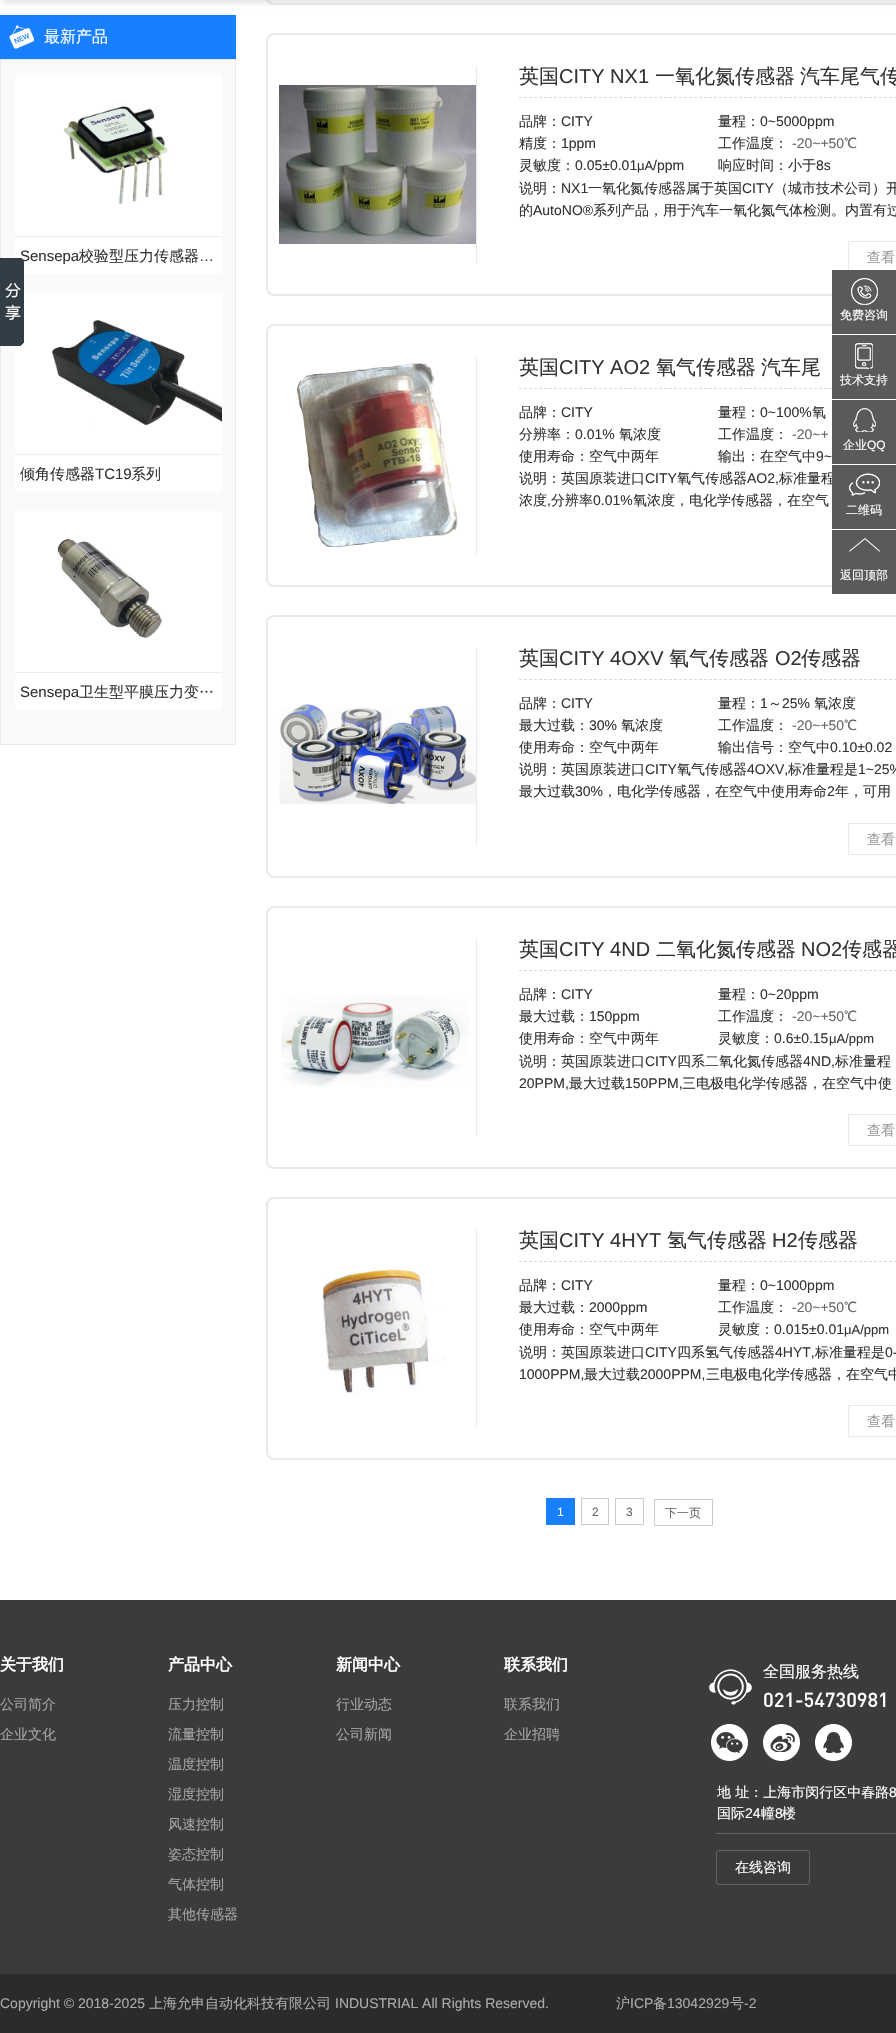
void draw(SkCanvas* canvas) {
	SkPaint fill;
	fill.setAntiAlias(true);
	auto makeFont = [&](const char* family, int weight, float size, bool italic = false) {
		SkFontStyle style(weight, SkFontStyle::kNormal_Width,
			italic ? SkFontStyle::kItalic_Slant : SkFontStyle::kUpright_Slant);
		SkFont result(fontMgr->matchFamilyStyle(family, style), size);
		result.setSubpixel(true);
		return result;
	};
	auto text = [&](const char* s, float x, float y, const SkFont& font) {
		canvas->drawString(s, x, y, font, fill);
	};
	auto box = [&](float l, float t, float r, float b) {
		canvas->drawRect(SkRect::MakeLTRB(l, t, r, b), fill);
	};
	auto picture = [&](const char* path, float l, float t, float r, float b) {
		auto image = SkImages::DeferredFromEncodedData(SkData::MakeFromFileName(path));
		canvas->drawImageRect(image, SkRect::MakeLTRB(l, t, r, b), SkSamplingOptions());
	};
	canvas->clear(0xFFFFFFFF);
	fill.setStyle(SkPaint::kStroke_Style);
	fill.setStrokeWidth(2);
	fill.setColor(0xFFE9E9E9);
	canvas->drawRoundRect(SkRect::MakeLTRB(267, -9, 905, 4), 7, 7, fill);
	fill.setStyle(SkPaint::kFill_Style);
	fill.setColor(0x1A000000);
	fill.setMaskFilter(SkMaskFilter::MakeBlur(kNormal_SkBlurStyle, 2.5f));
	canvas->drawRect(SkRect::MakeLTRB(3, -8, 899, 3), fill);
	fill.setMaskFilter(nullptr);
	fill.setColor(0xFF187FFE);
	box(0, 15, 236, 59);
	picture("image0.png", 9, 25, 34, 49);
	fill.setColor(0xFFFAFAFA);
	canvas->drawRect(SkRect::MakeLTRB(0.5f, 59.5f, 235.5f, 744.5f), fill);
	fill.setStyle(SkPaint::kStroke_Style);
	fill.setStrokeWidth(1);
	fill.setColor(0xFFE9E9E9);
	canvas->drawRect(SkRect::MakeLTRB(0.5f, 59.5f, 235.5f, 744.5f), fill);
	fill.setStyle(SkPaint::kFill_Style);
	fill.setColor(0xFFFFFFFF);
	box(15, 75, 222, 236);
	fill.setColor(0xFFEDEDED);
	box(15, 236, 222, 237);
	picture("image1.png", 63, 106, 169, 204);
	fill.setColor(0xFFFFFFFF);
	box(15, 237, 222, 274);
	box(15, 293, 222, 454);
	fill.setColor(0xFFEDEDED);
	box(15, 454, 222, 455);
	picture("image2.png", 52, 320, 222, 426);
	fill.setColor(0xFFFFFFFF);
	box(15, 455, 222, 492);
	box(15, 511, 222, 672);
	fill.setColor(0xFFEDEDED);
	box(15, 672, 222, 673);
	picture("image3.png", 57, 539, 162, 638);
	fill.setColor(0xFFFFFFFF);
	box(15, 673, 222, 710);
	fill.setStyle(SkPaint::kStroke_Style);
	fill.setStrokeWidth(2);
	fill.setColor(0xFFE9E9E9);
	canvas->drawRoundRect(SkRect::MakeLTRB(267, 34, 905, 295), 7, 7, fill);
	fill.setStyle(SkPaint::kFill_Style);
	box(476, 66, 477, 263);
	picture("image4.png", 279, 85, 476, 244);
	fill.setStyle(SkPaint::kStroke_Style);
	fill.setStrokeWidth(1);
	fill.setColor(0xFFDADADA);
	fill.setPathEffect(SkDashPathEffect::Make({{3, 2}}, 0));
	canvas->drawPath(SkPathBuilder().moveTo(519, 97.5f).lineTo(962, 97.5f).detach(), fill);
	fill.setPathEffect(nullptr);
	fill.setColor(0xFFE9E9E9);
	canvas->drawRect(SkRect::MakeLTRB(848.5f, 241.5f, 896.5f, 272.5f), fill);
	fill.setStrokeWidth(2);
	canvas->drawRoundRect(SkRect::MakeLTRB(267, 325, 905, 586), 7, 7, fill);
	fill.setStyle(SkPaint::kFill_Style);
	box(476, 357, 477, 554);
	picture("image5.png", 297, 363, 458, 547);
	fill.setStyle(SkPaint::kStroke_Style);
	fill.setStrokeWidth(1);
	fill.setColor(0xFFDADADA);
	fill.setPathEffect(SkDashPathEffect::Make({{3, 2}}, 0));
	canvas->drawPath(SkPathBuilder().moveTo(519, 388.5f).lineTo(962, 388.5f).detach(), fill);
	fill.setPathEffect(nullptr);
	fill.setStrokeWidth(2);
	fill.setColor(0xFFE9E9E9);
	canvas->drawRoundRect(SkRect::MakeLTRB(267, 616, 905, 877), 7, 7, fill);
	fill.setStyle(SkPaint::kFill_Style);
	box(476, 648, 477, 845);
	picture("image6.png", 279, 704, 476, 804);
	fill.setStyle(SkPaint::kStroke_Style);
	fill.setStrokeWidth(1);
	fill.setColor(0xFFDADADA);
	fill.setPathEffect(SkDashPathEffect::Make({{3, 2}}, 0));
	canvas->drawPath(SkPathBuilder().moveTo(519, 679.5f).lineTo(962, 679.5f).detach(), fill);
	fill.setPathEffect(nullptr);
	fill.setColor(0xFFE9E9E9);
	canvas->drawRect(SkRect::MakeLTRB(848.5f, 823.5f, 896.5f, 854.5f), fill);
	fill.setStrokeWidth(2);
	canvas->drawRoundRect(SkRect::MakeLTRB(267, 907, 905, 1168), 7, 7, fill);
	fill.setStyle(SkPaint::kFill_Style);
	box(476, 939, 477, 1136);
	picture("image7.png", 281, 996, 469, 1087);
	fill.setStyle(SkPaint::kStroke_Style);
	fill.setStrokeWidth(1);
	fill.setColor(0xFFDADADA);
	fill.setPathEffect(SkDashPathEffect::Make({{3, 2}}, 0));
	canvas->drawPath(SkPathBuilder().moveTo(519, 970.5f).lineTo(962, 970.5f).detach(), fill);
	fill.setPathEffect(nullptr);
	fill.setColor(0xFFE9E9E9);
	canvas->drawRect(SkRect::MakeLTRB(848.5f, 1114.5f, 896.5f, 1145.5f), fill);
	fill.setStrokeWidth(2);
	canvas->drawRoundRect(SkRect::MakeLTRB(267, 1198, 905, 1459), 7, 7, fill);
	fill.setStyle(SkPaint::kFill_Style);
	box(476, 1230, 477, 1427);
	picture("image8.png", 322, 1266, 446, 1396);
	fill.setStyle(SkPaint::kStroke_Style);
	fill.setStrokeWidth(1);
	fill.setColor(0xFFDADADA);
	fill.setPathEffect(SkDashPathEffect::Make({{3, 2}}, 0));
	canvas->drawPath(SkPathBuilder().moveTo(519, 1261.5f).lineTo(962, 1261.5f).detach(), fill);
	fill.setPathEffect(nullptr);
	fill.setColor(0xFFE9E9E9);
	canvas->drawRect(SkRect::MakeLTRB(848.5f, 1405.5f, 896.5f, 1436.5f), fill);
	fill.setStyle(SkPaint::kFill_Style);
	fill.setColor(0xFF187FFE);
	box(546, 1498, 575, 1525);
	fill.setStyle(SkPaint::kStroke_Style);
	fill.setColor(0xFFCBCBCB);
	canvas->drawRect(SkRect::MakeLTRB(581.5f, 1498.5f, 608.5f, 1524.5f), fill);
	canvas->drawRect(SkRect::MakeLTRB(615.5f, 1498.5f, 643.5f, 1524.5f), fill);
	canvas->drawRect(SkRect::MakeLTRB(654.5f, 1499.5f, 712.5f, 1525.5f), fill);
	fill.setStyle(SkPaint::kFill_Style);
	fill.setColor(0xFF3B3B3B);
	box(0, 1600, 896, 1974);
	picture("image9.png", 709, 1669, 752, 1705);
	picture("image10.png", 711, 1724, 748, 1761);
	picture("image11.png", 763, 1724, 800, 1761);
	picture("image12.png", 815, 1724, 852, 1761);
	fill.setColor(0xFF626262);
	box(716, 1833, 896, 1834);
	fill.setStyle(SkPaint::kStroke_Style);
	canvas->drawRoundRect(SkRect::MakeLTRB(716.5f, 1850.5f, 809.5f, 1884.5f), 2.5f, 2.5f, fill);
	fill.setStyle(SkPaint::kFill_Style);
	fill.setColor(0xFF2B2B2B);
	box(0, 1974, 896, 2033);
	fill.setColor(0xFF5A5A5A);
	box(832, 270, 896, 334);
	picture("image14.png", 851, 278, 878, 305);
	box(832, 335, 896, 399);
	picture("image15.png", 855, 343, 873, 369);
	box(832, 400, 896, 464);
	picture("image16.png", 853, 408, 876, 432);
	box(832, 530, 896, 594);
	picture("image18.png", 849, 538, 880, 552);
	auto font1 = makeFont("WenQuanYi Zen Hei", 500, 16);
	fill.setColor(0xFFFFFFFF);
	text("最新产品", 44, 42, font1);
	auto font2 = makeFont("Liberation Sans", 400, 15);
	fill.setColor(0xFF333333);
	text("Sensepa", 20, 261, font2);
	auto font3 = makeFont("WenQuanYi Zen Hei", 500, 15);
	text("校验型压力传感器", 79, 261, font3);
	text("…", 199, 261, font2);
	text("倾角传感器", 20, 479, font3);
	text("TC19", 95, 479, font2);
	text("系列", 131, 479, font3);
	text("Sensepa", 20, 697, font2);
	text("卫生型平膜压力变…", 79, 697, font3);
	auto font4 = makeFont("WenQuanYi Zen Hei", 500, 20);
	text("英国", 519, 83, font4);
	auto font5 = makeFont("Liberation Sans", 400, 20);
	text("CITY NX1", 559, 83, font5);
	text("一氧化氮传感器", 655, 83, font4);
	text("汽车尾气传", 800, 83, font4);
	auto font6 = makeFont("WenQuanYi Zen Hei", 500, 14);
	text("品牌：", 519, 126, font6);
	auto font7 = makeFont("Liberation Sans", 400, 14);
	text("CITY", 561, 126, font7);
	text("量程：", 718, 126, font6);
	text("0~5000ppm", 760, 126, font7);
	text("精度：", 519, 148, font6);
	text("1ppm", 561, 148, font7);
	text("工作温度：", 718, 148, font6);
	fill.setColor(0xFF666666);
	text("-20~+50", 792, 148, font7);
	text("℃", 844, 148, font6);
	fill.setColor(0xFF333333);
	text("灵敏度：", 519, 170, font6);
	text("0.05±0.01", 575, 170, font7);
	auto font8 = makeFont("Liberation Sans", 400, 13);
	text("μA", 637, 170, font8);
	text("/ppm", 653, 170, font7);
	text("响应时间：小于", 718, 170, font6);
	text("8s", 816, 170, font7);
	text("说明：", 519, 193, font6);
	text("NX1", 561, 193, font7);
	text("一氧化氮传感器属于英国", 588, 193, font6);
	text("CITY", 742, 193, font7);
	text("（城市技术公司）开", 774, 193, font6);
	text("的", 519, 215, font6);
	text("AutoNO®", 533, 215, font7);
	text("系列产品，用于汽车一氧化氮气体检测。内置有过", 593, 215, font6);
	fill.setColor(0xFF999999);
	text("查看", 867, 262, font6);
	fill.setColor(0xFF333333);
	text("英国", 519, 374, font4);
	text("CITY AO2", 559, 374, font5);
	text("氧气传感器", 656, 374, font4);
	text("汽车尾", 761, 374, font4);
	text("品牌：", 519, 417, font6);
	text("CITY", 561, 417, font7);
	text("量程：", 718, 417, font6);
	text("0~100%", 760, 417, font7);
	text("氧", 812, 417, font6);
	text("分辨率：", 519, 439, font6);
	text("0.01%", 575, 439, font7);
	text("氧浓度", 619, 439, font6);
	text("工作温度：", 718, 439, font6);
	fill.setColor(0xFF666666);
	text("-20~+", 792, 439, font7);
	fill.setColor(0xFF333333);
	text("使用寿命：空气中两年", 519, 461, font6);
	text("输出：在空气中", 718, 461, font6);
	text("9~", 816, 461, font7);
	text("说明：英国原装进口", 519, 483, font6);
	text("CITY", 645, 483, font7);
	text("氧气传感器", 677, 483, font6);
	text("AO2,", 747, 483, font7);
	text("标准量程", 779, 483, font6);
	text("浓度", 519, 505, font6);
	text(",", 547, 505, font7);
	text("分辨率", 551, 505, font6);
	text("0.01%", 593, 505, font7);
	text("氧浓度，电化学传感器，在空气", 633, 505, font6);
	text("英国", 519, 665, font4);
	text("CITY 4OXV", 559, 665, font5);
	text("氧气传感器", 669, 665, font4);
	text("O2", 775, 665, font5);
	text("传感器", 801, 665, font4);
	text("品牌：", 519, 708, font6);
	text("CITY", 561, 708, font7);
	text("量程：", 718, 708, font6);
	text("1", 760, 708, font7);
	text("～", 768, 708, font6);
	text("25%", 782, 708, font7);
	text("氧浓度", 814, 708, font6);
	text("最大过载：", 519, 730, font6);
	text("30%", 589, 730, font7);
	text("氧浓度", 621, 730, font6);
	text("工作温度：", 718, 730, font6);
	fill.setColor(0xFF666666);
	text("-20~+50", 792, 730, font7);
	text("℃", 844, 730, font6);
	fill.setColor(0xFF333333);
	text("使用寿命：空气中两年", 519, 752, font6);
	text("输出信号：空气中", 718, 752, font6);
	text("0.10±0.02", 830, 752, font7);
	text("说明：英国原装进口", 519, 774, font6);
	text("CITY", 645, 774, font7);
	text("氧气传感器", 677, 774, font6);
	text("4OXV,", 747, 774, font7);
	text("标准量程是", 788, 774, font6);
	text("1~25%", 858, 774, font7);
	text("最大过载", 519, 796, font6);
	text("30%", 575, 796, font7);
	text("，电化学传感器，在空气中使用寿命", 603, 796, font6);
	text("2", 827, 796, font7);
	text("年，可用", 835, 796, font6);
	fill.setColor(0xFF999999);
	text("查看", 867, 844, font6);
	fill.setColor(0xFF333333);
	text("英国", 519, 956, font4);
	text("CITY 4ND", 559, 956, font5);
	text("二氧化氮传感器", 656, 956, font4);
	text("NO2", 801, 956, font5);
	text("传感器", 842, 956, font4);
	text("品牌：", 519, 999, font6);
	text("CITY", 561, 999, font7);
	text("量程：", 718, 999, font6);
	text("0~20ppm", 760, 999, font7);
	text("最大过载：", 519, 1021, font6);
	text("150ppm", 589, 1021, font7);
	text("工作温度：", 718, 1021, font6);
	fill.setColor(0xFF666666);
	text("-20~+50", 792, 1021, font7);
	text("℃", 844, 1021, font6);
	fill.setColor(0xFF333333);
	text("使用寿命：空气中两年", 519, 1043, font6);
	text("灵敏度：", 718, 1043, font6);
	text("0.6±0.15", 774, 1043, font7);
	text("μA/ppm", 829, 1043, font8);
	text("说明：英国原装进口", 519, 1066, font6);
	text("CITY", 645, 1066, font7);
	text("四系二氧化氮传感器", 677, 1066, font6);
	text("4ND,", 803, 1066, font7);
	text("标准量程", 835, 1066, font6);
	text("20PPM,", 519, 1088, font7);
	text("最大过载", 569, 1088, font6);
	text("150PPM,", 625, 1088, font7);
	text("三电极电化学传感器，在空气中使", 682, 1088, font6);
	fill.setColor(0xFF999999);
	text("查看", 867, 1135, font6);
	fill.setColor(0xFF333333);
	text("英国", 519, 1247, font4);
	text("CITY 4HYT", 559, 1247, font5);
	text("氢气传感器", 667, 1247, font4);
	text("H2", 772, 1247, font5);
	text("传感器", 798, 1247, font4);
	text("品牌：", 519, 1290, font6);
	text("CITY", 561, 1290, font7);
	text("量程：", 718, 1290, font6);
	text("0~1000ppm", 760, 1290, font7);
	text("最大过载：", 519, 1312, font6);
	text("2000ppm", 589, 1312, font7);
	text("工作温度：", 718, 1312, font6);
	fill.setColor(0xFF666666);
	text("-20~+50", 792, 1312, font7);
	text("℃", 844, 1312, font6);
	fill.setColor(0xFF333333);
	text("使用寿命：空气中两年", 519, 1334, font6);
	text("灵敏度：", 718, 1334, font6);
	text("0.015±0.01", 774, 1334, font7);
	text("μA/ppm", 844, 1334, font8);
	text("说明：英国原装进口", 519, 1357, font6);
	text("CITY", 645, 1357, font7);
	text("四系氢气传感器", 677, 1357, font6);
	text("4HYT,", 775, 1357, font7);
	text("标准量程是", 815, 1357, font6);
	text("0-", 885, 1357, font7);
	text("1000PPM,", 519, 1379, font7);
	text("最大过载", 584, 1379, font6);
	text("2000PPM,", 640, 1379, font7);
	text("三电极电化学传感器，在空气中", 706, 1379, font6);
	fill.setColor(0xFF999999);
	text("查看", 867, 1426, font6);
	auto font9 = makeFont("Liberation Sans", 400, 12);
	fill.setColor(0xFFFFFFFF);
	text("1", 557, 1516, font9);
	fill.setColor(0xFF666666);
	text("2", 592, 1516, font9);
	text("3", 626, 1516, font9);
	auto font10 = makeFont("WenQuanYi Zen Hei", 500, 12);
	text("下一页", 665, 1517, font10);
	auto font11 = makeFont("WenQuanYi Zen Hei", 700, 16);
	fill.setColor(0xFFFFFFFF);
	text("关于我们", 0, 1670, font11);
	fill.setColor(0xFFA4A4A4);
	text("公司简介", 0, 1709, font6);
	text("企业文化", 0, 1739, font6);
	fill.setColor(0xFFFFFFFF);
	text("产品中心", 168, 1670, font11);
	fill.setColor(0xFFA4A4A4);
	text("压力控制", 168, 1709, font6);
	text("流量控制", 168, 1739, font6);
	text("温度控制", 168, 1769, font6);
	text("湿度控制", 168, 1799, font6);
	text("风速控制", 168, 1829, font6);
	text("姿态控制", 168, 1859, font6);
	text("气体控制", 168, 1889, font6);
	text("其他传感器", 168, 1919, font6);
	fill.setColor(0xFFFFFFFF);
	text("新闻中心", 336, 1670, font11);
	fill.setColor(0xFFA4A4A4);
	text("行业动态", 336, 1709, font6);
	text("公司新闻", 336, 1739, font6);
	fill.setColor(0xFFFFFFFF);
	text("联系我们", 504, 1670, font11);
	fill.setColor(0xFFA4A4A4);
	text("联系我们", 504, 1709, font6);
	text("企业招聘", 504, 1739, font6);
	fill.setColor(0xFFFFFFFF);
	text("全国服务热线", 763, 1677, font1);
	auto font12 = makeFont("DIN", 500, 20);
	text("021-54730981", 763, 1707, font12);
	text("地 址：上海市闵行区中春路", 717, 1797, font6);
	text("8", 889, 1797, font7);
	text("国际", 717, 1818, font6);
	text("24", 745, 1818, font7);
	text("幢", 761, 1818, font6);
	text("8", 775, 1818, font7);
	text("楼", 782, 1818, font6);
	text("在线咨询", 735, 1872, font6);
	fill.setColor(0xFFABABAB);
	text("Copyright © 2018-2025", 0, 2008, font7);
	text("上海允申自动化科技有限公司", 149, 2008, font6);
	text("INDUSTRIAL All Rights Reserved.", 335, 2008, font7);
	text("沪", 616, 2008, font6);
	text("ICP", 630, 2008, font7);
	text("备", 653, 2008, font6);
	text("13042929", 667, 2008, font7);
	text("号", 730, 2008, font6);
	text("-2", 744, 2008, font7);
	picture("image13.png", 0, 258, 24, 346);
	fill.setColor(0xFFFFFFFF);
	text("免费咨询", 840, 319, font10);
	text("技术支持", 840, 384, font10);
	text("企业", 843, 449, font10);
	text("QQ", 867, 449, font9);
	fill.setColor(0xFF5A5A5A);
	box(832, 465, 896, 529);
	picture("image17.png", 849, 473, 880, 496);
	fill.setColor(0xFFFFFFFF);
	text("二维码", 846, 514, font10);
	text("返回顶部", 840, 579, font10);
}
